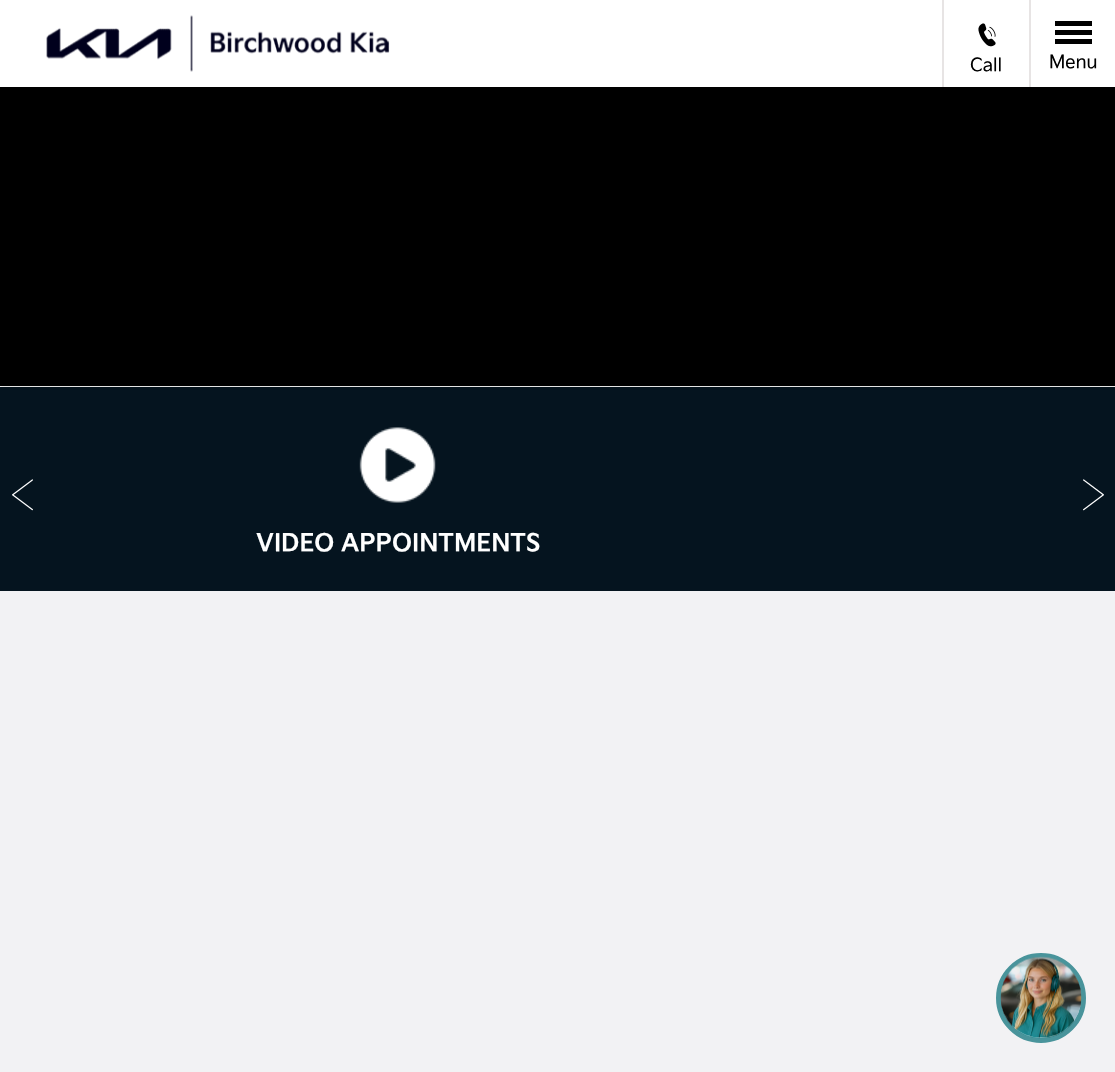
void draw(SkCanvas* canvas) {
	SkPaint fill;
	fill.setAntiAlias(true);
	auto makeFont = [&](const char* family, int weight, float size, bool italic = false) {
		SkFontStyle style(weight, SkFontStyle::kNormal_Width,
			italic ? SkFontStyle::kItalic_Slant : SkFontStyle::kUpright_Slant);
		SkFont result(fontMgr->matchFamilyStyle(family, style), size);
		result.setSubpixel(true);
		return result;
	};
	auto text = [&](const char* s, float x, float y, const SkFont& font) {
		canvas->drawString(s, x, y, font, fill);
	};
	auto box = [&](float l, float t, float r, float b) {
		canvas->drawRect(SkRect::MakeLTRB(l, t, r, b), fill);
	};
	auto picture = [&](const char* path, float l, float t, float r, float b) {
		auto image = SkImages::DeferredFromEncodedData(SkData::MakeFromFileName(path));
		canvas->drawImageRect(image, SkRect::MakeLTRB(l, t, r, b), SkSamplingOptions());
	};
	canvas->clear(0xFFF7F8F8);
	fill.setColor(0xFF05141F);
	box(0, 387, 1115, 591);
	fill.setColor(0x33000000);
	fill.setMaskFilter(SkMaskFilter::MakeBlur(kNormal_SkBlurStyle, 2));
	canvas->drawRect(SkRect::MakeLTRB(0, 0, 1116, 386), fill);
	fill.setMaskFilter(nullptr);
	fill.setColor(0xFFFFFFFF);
	box(0, 0, 1115, 87);
	picture("image0.png", 46, 15, 390, 72);
	fill.setColor(0xFFE7E4E4);
	box(942, 0, 944, 87);
	picture("image1.png", 978, 23, 996, 47);
	box(1029, 0, 1031, 87);
	fill.setColor(0xFF000000);
	box(1055, 39, 1092, 44);
	box(1055, 21, 1092, 26);
	box(1055, 30, 1092, 35);
	box(0, 87, 1115, 386);
	picture("image2.png", 12, 479, 33, 511);
	picture("image3.png", 1083, 479, 1104, 511);
	picture("image4.png", 359, 427, 436, 503);
	fill.setColor(0xFFF2F2F4);
	box(0, 591, 1115, 1072);
	fill.setStyle(SkPaint::kStroke_Style);
	fill.setStrokeWidth(5);
	fill.setColor(0xFF49949B);
	canvas->drawCircle(1041, 998, 42.5f, fill);
	picture("image5.png", 1000, 956, 1082, 1039);
	auto font1 = makeFont("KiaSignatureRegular", 400, 18);
	fill.setStyle(SkPaint::kFill_Style);
	fill.setColor(0xFF000000);
	text("Call", 970, 71, font1);
	text("Menu", 1049, 68, font1);
	auto font2 = makeFont("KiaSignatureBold", 700, 24);
	fill.setColor(0xFFFFFFFF);
	text("VIDEO APPOINTMENTS", 256, 551, font2);
}
